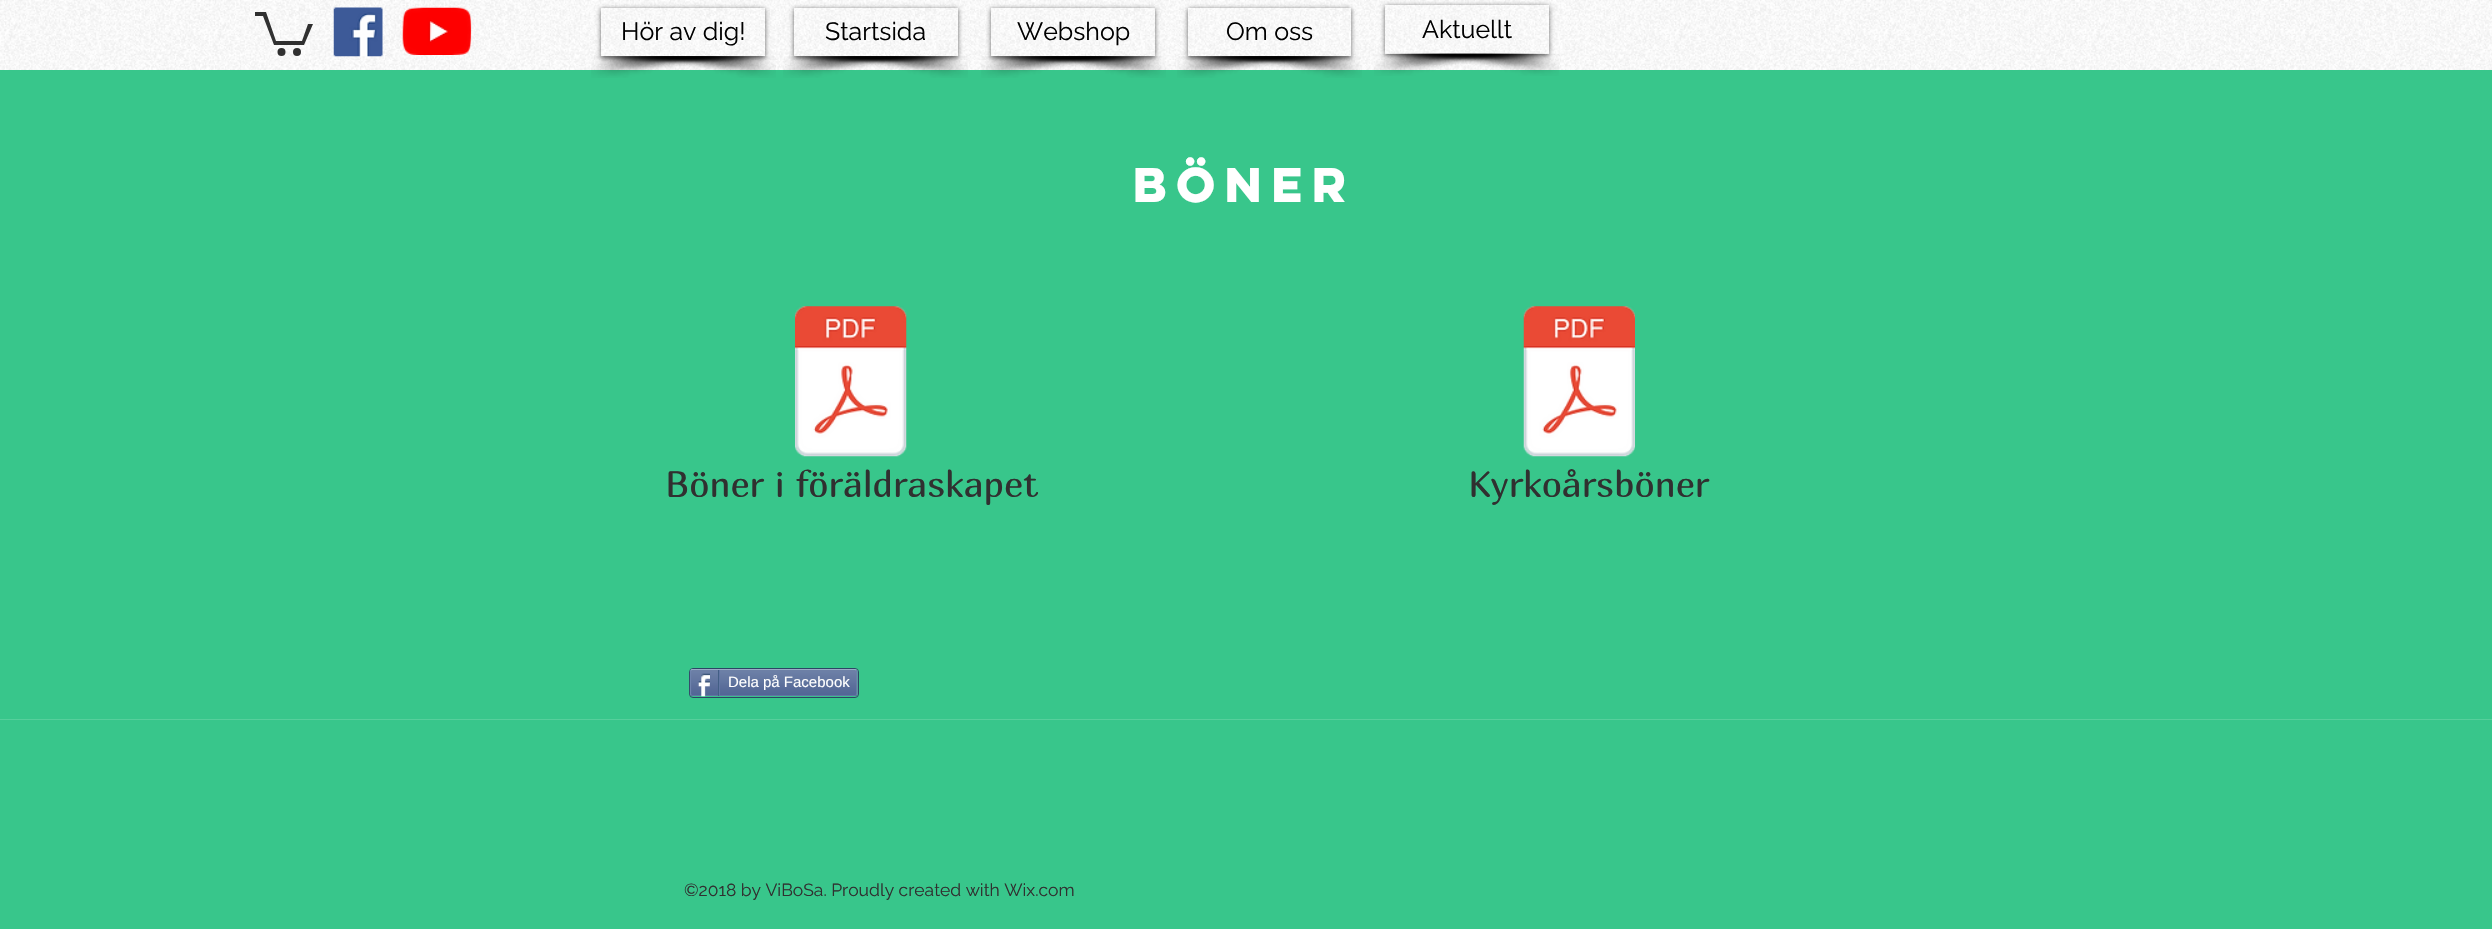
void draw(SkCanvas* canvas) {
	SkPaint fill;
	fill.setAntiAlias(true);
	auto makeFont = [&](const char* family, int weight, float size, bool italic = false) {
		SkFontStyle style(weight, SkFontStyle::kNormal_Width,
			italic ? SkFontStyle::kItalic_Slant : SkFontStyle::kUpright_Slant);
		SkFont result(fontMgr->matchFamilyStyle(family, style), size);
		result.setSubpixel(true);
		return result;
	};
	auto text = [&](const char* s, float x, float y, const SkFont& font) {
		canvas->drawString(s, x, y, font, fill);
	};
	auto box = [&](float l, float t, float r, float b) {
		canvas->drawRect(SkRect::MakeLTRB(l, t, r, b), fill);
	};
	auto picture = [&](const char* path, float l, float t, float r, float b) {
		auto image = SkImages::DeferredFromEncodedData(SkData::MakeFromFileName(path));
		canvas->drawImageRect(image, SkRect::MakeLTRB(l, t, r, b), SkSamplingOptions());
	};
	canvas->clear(0xFF38C68B);
	fill.setColor(0xFFFFFFFF);
	box(0, 0, 2492, 70);
	picture("image0.png", 0, 0, 2492, 70);
	fill.setColor(0xFF303030);
	canvas->drawPath(SkPathBuilder().moveTo(313, 24).lineTo(304, 45).lineTo(274, 45).lineTo(263, 16).lineTo(255, 16).lineTo(255, 12).lineTo(266, 12).lineTo(276, 41).lineTo(302, 41).lineTo(308, 24).detach(), fill);
	canvas->drawCircle(297, 52, 4, fill);
	canvas->drawCircle(281.5f, 52, 4, fill);
	picture("image1.png", 333, 7, 383, 57);
	picture("image2.png", 402, 7, 472, 55);
	picture("image3.png", 591, 56, 774, 78);
	picture("image4.png", 592, 56, 776, 78);
	canvas->save();
	canvas->clipPath(SkPathBuilder(SkPathFillType::kEvenOdd).moveTo(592, 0).lineTo(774, 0).lineTo(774, 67).lineTo(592, 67).close().moveTo(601, 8).lineTo(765, 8).lineTo(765, 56).lineTo(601, 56).close().detach(), true);
	fill.setColor(0x99000000);
	fill.setMaskFilter(SkMaskFilter::MakeBlur(kNormal_SkBlurStyle, 2.5f));
	canvas->drawRect(SkRect::MakeLTRB(601, 9, 765, 58), fill);
	fill.setMaskFilter(nullptr);
	canvas->restore();
	picture("image5.png", 783, 56, 967, 78);
	picture("image6.png", 784, 56, 968, 78);
	canvas->save();
	canvas->clipPath(SkPathBuilder(SkPathFillType::kEvenOdd).moveTo(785, 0).lineTo(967, 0).lineTo(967, 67).lineTo(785, 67).close().moveTo(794, 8).lineTo(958, 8).lineTo(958, 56).lineTo(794, 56).close().detach(), true);
	fill.setMaskFilter(SkMaskFilter::MakeBlur(kNormal_SkBlurStyle, 2.5f));
	canvas->drawRect(SkRect::MakeLTRB(794, 9, 958, 58), fill);
	fill.setMaskFilter(nullptr);
	canvas->restore();
	picture("image7.png", 981, 56, 1164, 78);
	picture("image8.png", 982, 56, 1166, 78);
	canvas->save();
	canvas->clipPath(SkPathBuilder(SkPathFillType::kEvenOdd).moveTo(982, 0).lineTo(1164, 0).lineTo(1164, 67).lineTo(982, 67).close().moveTo(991, 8).lineTo(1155, 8).lineTo(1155, 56).lineTo(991, 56).close().detach(), true);
	fill.setMaskFilter(SkMaskFilter::MakeBlur(kNormal_SkBlurStyle, 2.5f));
	canvas->drawRect(SkRect::MakeLTRB(991, 9, 1155, 58), fill);
	fill.setMaskFilter(nullptr);
	canvas->restore();
	picture("image9.png", 1177, 56, 1361, 78);
	picture("image10.png", 1178, 56, 1362, 78);
	canvas->save();
	canvas->clipPath(SkPathBuilder(SkPathFillType::kEvenOdd).moveTo(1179, 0).lineTo(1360, 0).lineTo(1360, 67).lineTo(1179, 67).close().moveTo(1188, 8).lineTo(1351, 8).lineTo(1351, 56).lineTo(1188, 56).close().detach(), true);
	fill.setMaskFilter(SkMaskFilter::MakeBlur(kNormal_SkBlurStyle, 2.5f));
	canvas->drawRect(SkRect::MakeLTRB(1188, 9, 1351, 58), fill);
	fill.setMaskFilter(nullptr);
	canvas->restore();
	picture("image12.png", 1374, 53, 1560, 76);
	picture("image11.png", 1373, 53, 1559, 76);
	canvas->save();
	canvas->clipPath(SkPathBuilder(SkPathFillType::kEvenOdd).moveTo(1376, 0).lineTo(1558, 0).lineTo(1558, 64).lineTo(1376, 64).close().moveTo(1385, 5).lineTo(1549, 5).lineTo(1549, 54).lineTo(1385, 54).close().detach(), true);
	fill.setMaskFilter(SkMaskFilter::MakeBlur(kNormal_SkBlurStyle, 2.5f));
	canvas->drawRect(SkRect::MakeLTRB(1385, 6, 1549, 55), fill);
	fill.setMaskFilter(nullptr);
	canvas->restore();
	picture("image13.png", 795, 306, 907, 457);
	picture("image14.png", 1523, 306, 1635, 457);
	fill.setStyle(SkPaint::kStroke_Style);
	fill.setStrokeWidth(1);
	fill.setColor(0xFF2D4565);
	canvas->drawRoundRect(SkRect::MakeLTRB(689.5f, 668.5f, 858.5f, 697.5f), 3.5f, 3.5f, fill);
	picture("image15.png", 690, 670, 858, 697);
	fill.setStrokeWidth(1.2f);
	fill.setColor(0xFF9AABC6);
	canvas->drawPath(SkPathBuilder().moveTo(691, 670).lineTo(692, 669.5f).lineTo(828, 669.5f).lineTo(855, 669.5f).lineTo(856.5f, 670).detach(), fill);
	fill.setColor(0xFF6F83AD);
	canvas->drawPath(SkPathBuilder().moveTo(856.5f, 670).lineTo(857, 671).lineTo(857, 694).lineTo(856.5f, 695).detach(), fill);
	fill.setColor(0xFF6176A3);
	canvas->drawPath(SkPathBuilder().moveTo(856.5f, 695).lineTo(855, 695.5f).lineTo(692, 695.5f).lineTo(691, 695).detach(), fill);
	fill.setColor(0xFF6F83AD);
	canvas->drawPath(SkPathBuilder().moveTo(691, 695).lineTo(690.5f, 694).lineTo(690.5f, 671).lineTo(691, 670).detach(), fill);
	picture("image16.png", 697, 673, 710, 697);
	fill.setStyle(SkPaint::kFill_Style);
	fill.setColor(0xFF425E85);
	box(718, 670, 719, 696);
	fill.setColor(0xFF6176A3);
	box(719, 670, 720, 695);
	fill.setColor(0xFF56CF9C);
	box(0, 719, 2492, 720);
	auto font1 = makeFont("Raleway", 400, 25);
	fill.setColor(0xFF000000);
	text("Hör av dig!", 621, 40, font1);
	text("Startsida", 825, 40, font1);
	text("Webshop", 1017, 40, font1);
	text("Om oss", 1226, 40, font1);
	text("Aktuellt", 1422, 38, font1);
	auto font2 = makeFont("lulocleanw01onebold", 700, 43.75f);
	fill.setColor(0xFFFFFFFF);
	text("Böner", 1133, 202, font2);
	auto font3 = makeFont("Marmelad", 400, 36.25f);
	fill.setColor(0xFF303030);
	text("Böner i föräldraskapet", 665, 497, font3);
	text("Kyrkoårsböner", 1468, 497, font3);
	auto font4 = makeFont("Liberation Sans", 400, 15);
	fill.setColor(0xFFFFFFFF);
	text("Dela på Facebook", 728, 687, font4);
	auto font5 = makeFont("Raleway", 400, 17.5f);
	fill.setColor(0xFF303030);
	text("©2018 by ViBoSa. Proudly created with Wix.com", 684, 896, font5);
}
